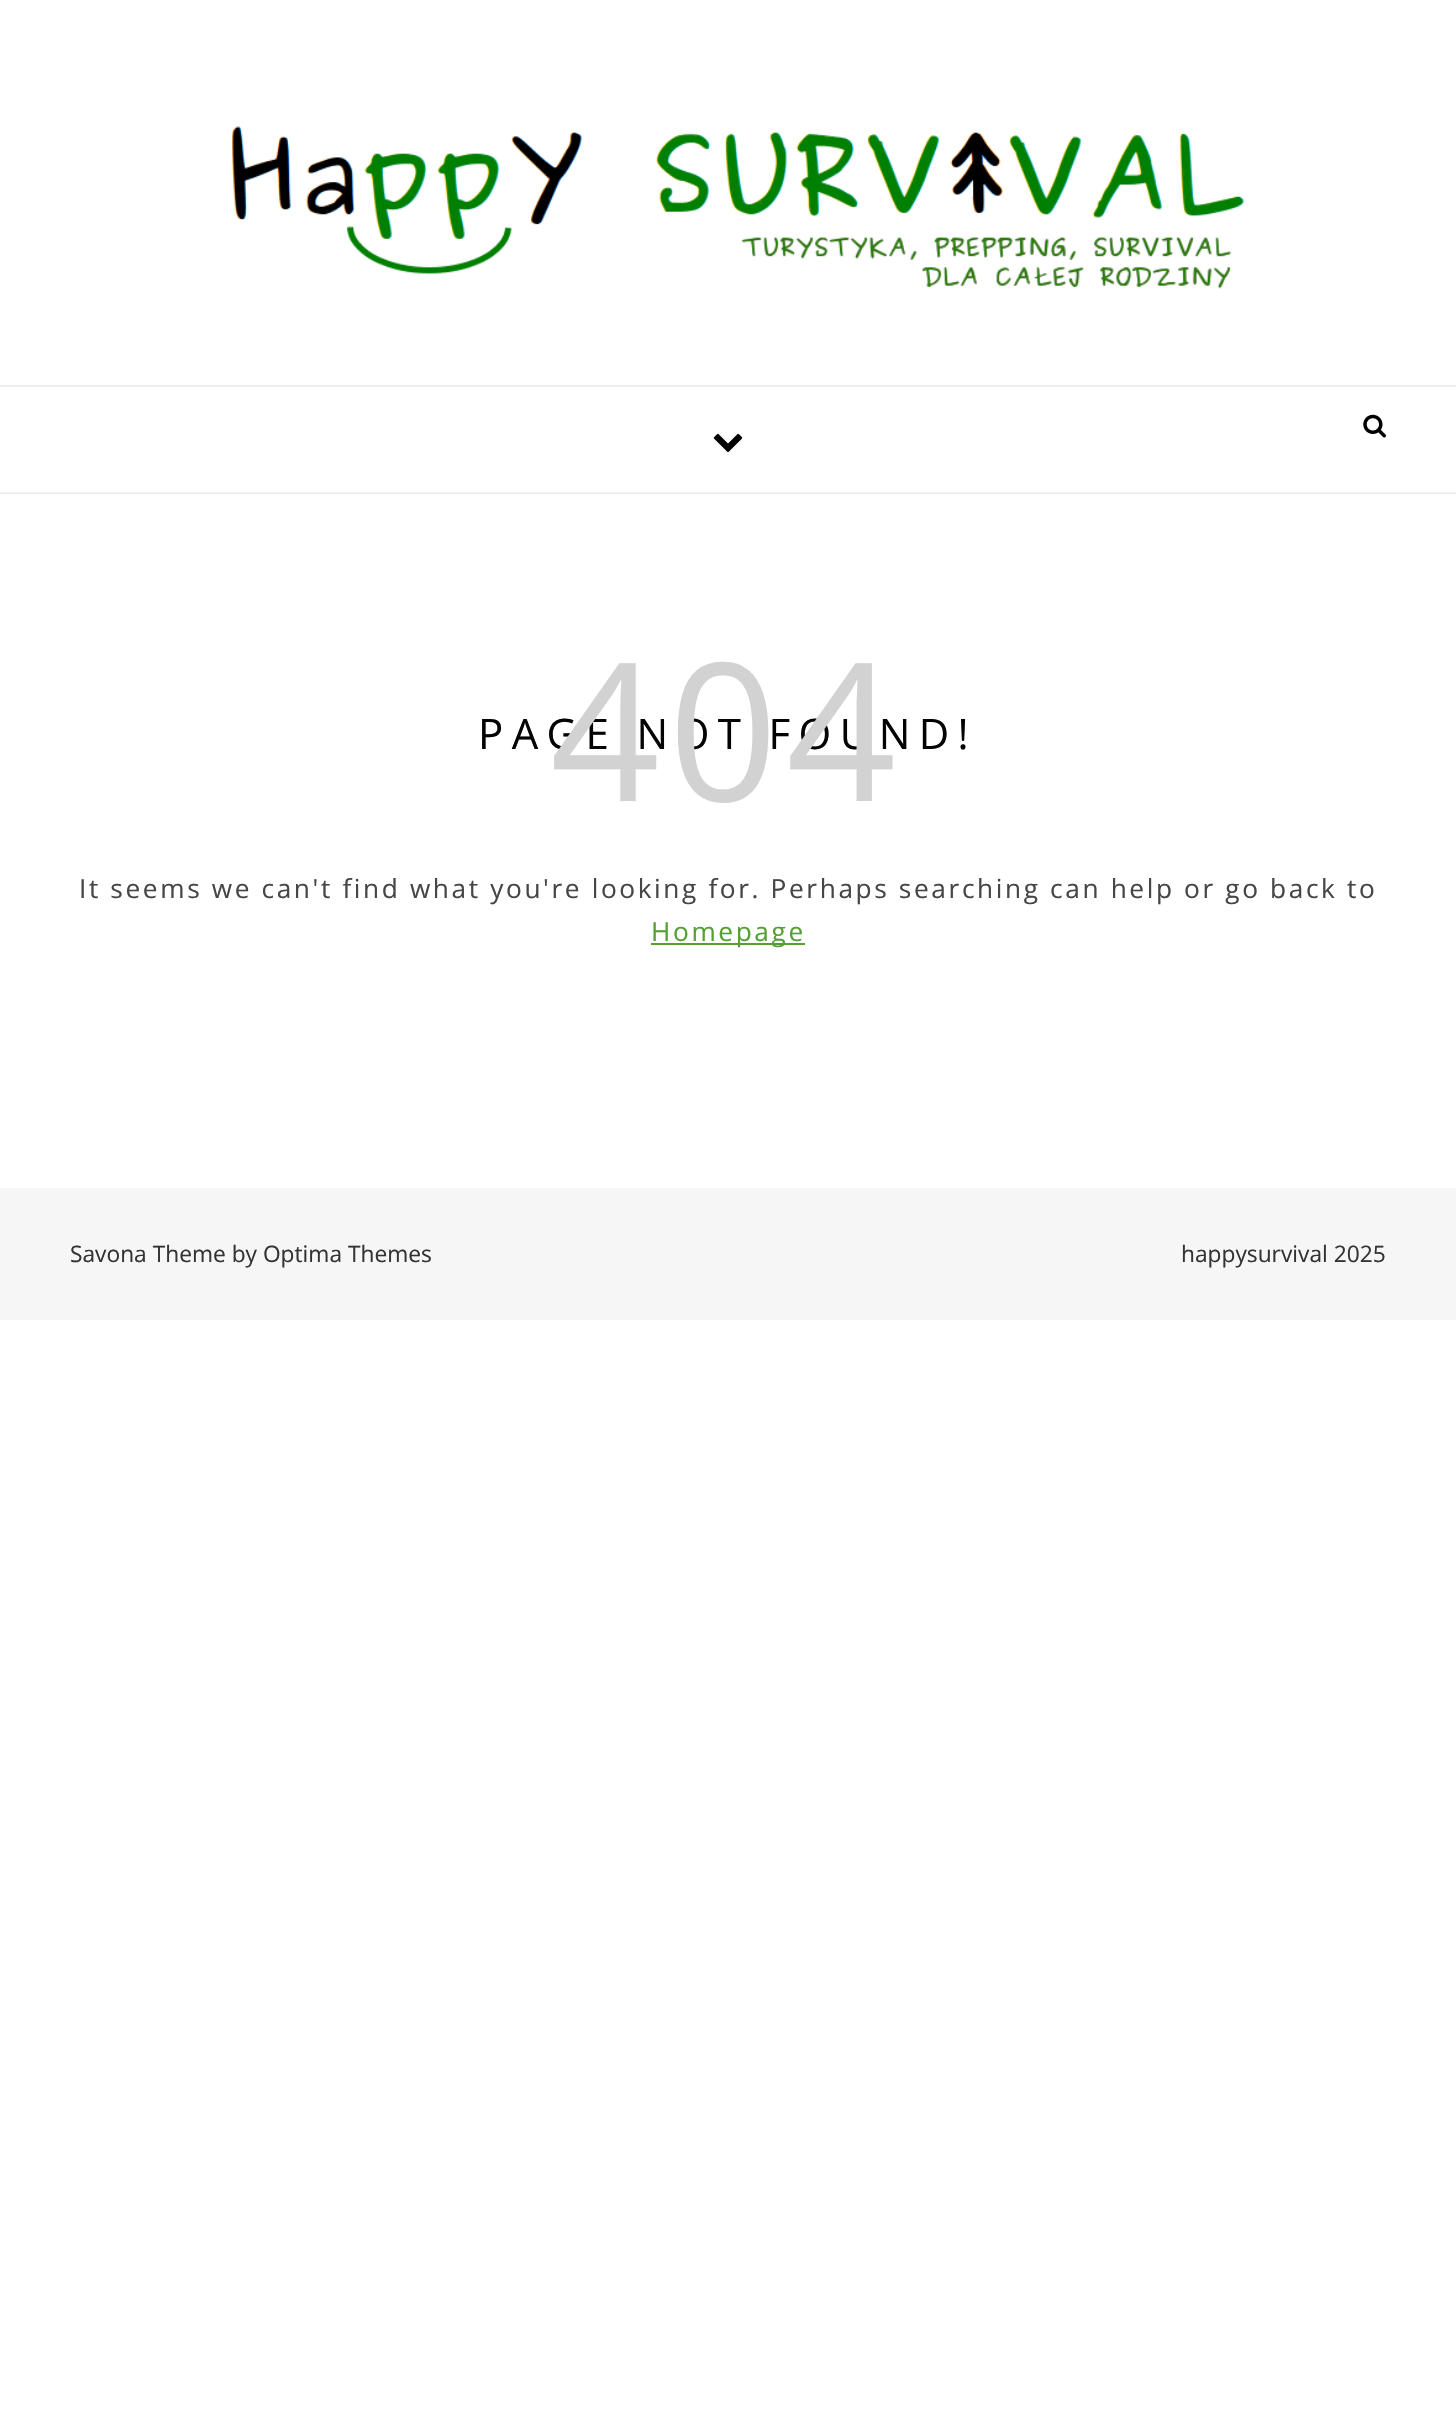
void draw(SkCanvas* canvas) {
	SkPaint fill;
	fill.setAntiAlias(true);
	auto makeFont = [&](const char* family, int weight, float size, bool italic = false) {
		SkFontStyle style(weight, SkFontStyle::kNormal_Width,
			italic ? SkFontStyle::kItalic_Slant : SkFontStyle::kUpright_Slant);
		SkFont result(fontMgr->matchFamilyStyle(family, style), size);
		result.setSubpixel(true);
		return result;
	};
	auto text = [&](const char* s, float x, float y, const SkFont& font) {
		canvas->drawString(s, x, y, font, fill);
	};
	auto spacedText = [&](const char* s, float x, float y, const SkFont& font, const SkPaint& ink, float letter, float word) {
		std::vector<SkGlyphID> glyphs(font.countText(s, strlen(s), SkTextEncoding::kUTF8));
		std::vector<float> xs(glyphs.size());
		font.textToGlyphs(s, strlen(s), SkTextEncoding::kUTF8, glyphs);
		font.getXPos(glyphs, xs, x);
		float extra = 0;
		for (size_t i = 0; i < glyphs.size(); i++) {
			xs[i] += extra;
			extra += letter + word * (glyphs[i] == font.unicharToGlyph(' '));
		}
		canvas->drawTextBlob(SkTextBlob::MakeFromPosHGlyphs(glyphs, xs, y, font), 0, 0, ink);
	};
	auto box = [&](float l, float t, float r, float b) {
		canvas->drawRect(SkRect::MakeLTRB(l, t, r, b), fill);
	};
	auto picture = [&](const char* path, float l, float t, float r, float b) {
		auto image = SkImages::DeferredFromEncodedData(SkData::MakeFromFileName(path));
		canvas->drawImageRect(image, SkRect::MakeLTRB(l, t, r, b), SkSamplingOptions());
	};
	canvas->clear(0xFFFFFFFF);
	picture("image0.png", 231, 126, 1245, 289);
	fill.setColor(0xFFEEEEEE);
	box(0, 385, 1456, 387);
	box(0, 492, 1456, 494);
	picture("image1.png", 1363, 414, 1386, 438);
	picture("image2.png", 713, 433, 743, 452);
	fill.setColor(0xFF54A031);
	box(651, 943, 805, 945);
	fill.setColor(0xFFF6F6F6);
	box(0, 1188, 1456, 1320);
	auto font1 = makeFont("Open Sans", 400, 42);
	fill.setColor(0xFF030303);
	spacedText("PAGE NOT FOUND!", 478, 749, font1, fill, 8.4f, 0);
	auto font2 = makeFont("Open Sans", 400, 192);
	fill.setColor(0xFFD2D2D2);
	spacedText("404", 550, 801, font2, fill, 8.4f, 0);
	auto font3 = makeFont("Open Sans", 400, 26.25f);
	fill.setColor(0xFF464646);
	spacedText("It seems we can't find what you're looking for. Perhaps searching can help or go back to", 79, 898, font3, fill, 2.62f, 0);
	fill.setColor(0xFF54A031);
	spacedText("Homepage", 651, 941, font3, fill, 2.62f, 0);
	auto font4 = makeFont("Open Sans", 400, 22.75f);
	fill.setColor(0xFF333333);
	text("Savona Theme by Optima Themes", 70, 1262, font4);
	text("happysurvival 2025", 1181, 1262, font4);
}
